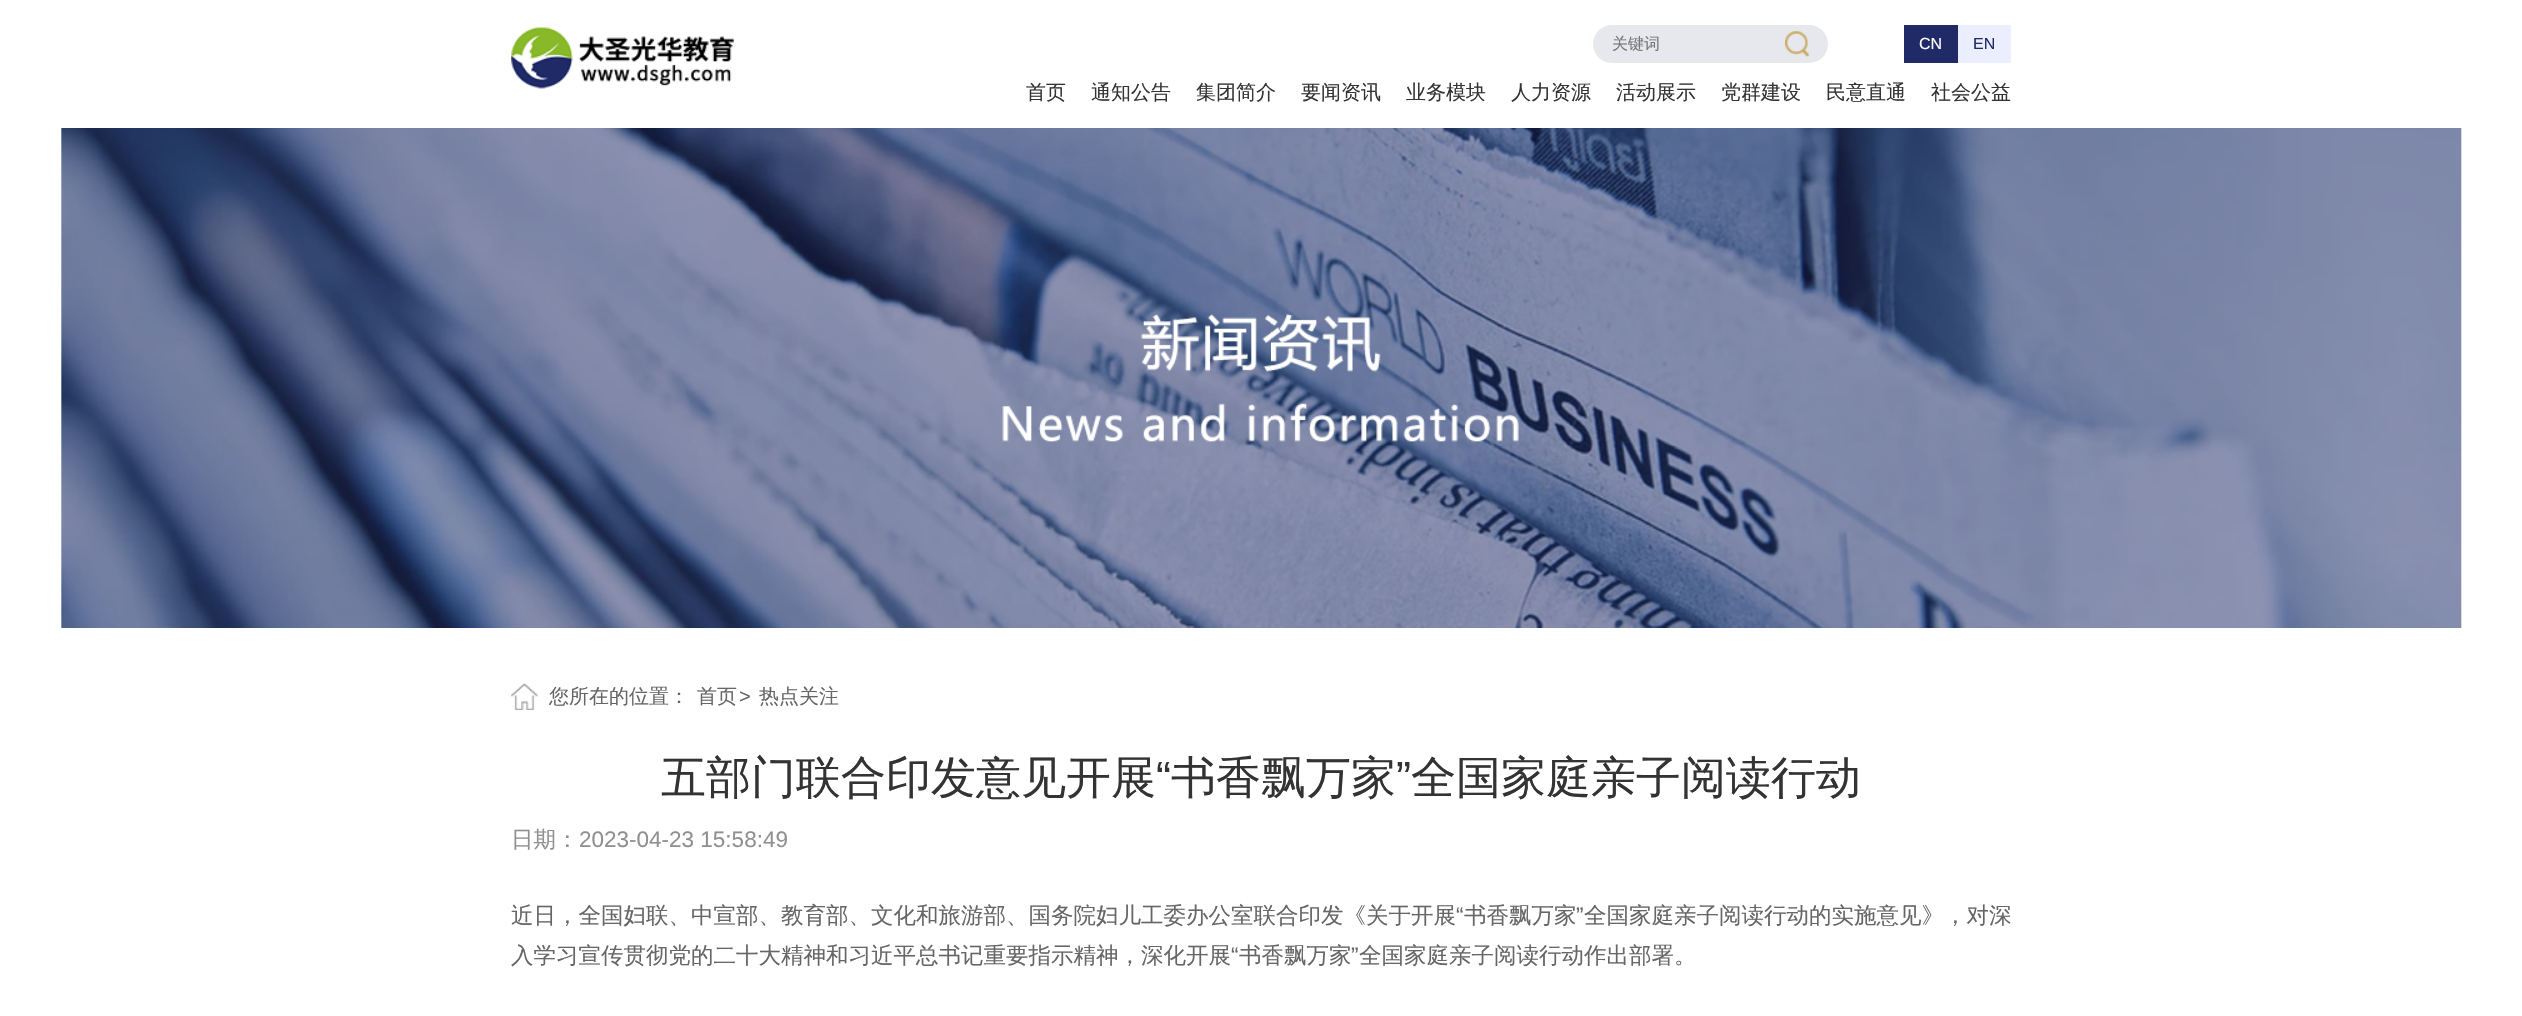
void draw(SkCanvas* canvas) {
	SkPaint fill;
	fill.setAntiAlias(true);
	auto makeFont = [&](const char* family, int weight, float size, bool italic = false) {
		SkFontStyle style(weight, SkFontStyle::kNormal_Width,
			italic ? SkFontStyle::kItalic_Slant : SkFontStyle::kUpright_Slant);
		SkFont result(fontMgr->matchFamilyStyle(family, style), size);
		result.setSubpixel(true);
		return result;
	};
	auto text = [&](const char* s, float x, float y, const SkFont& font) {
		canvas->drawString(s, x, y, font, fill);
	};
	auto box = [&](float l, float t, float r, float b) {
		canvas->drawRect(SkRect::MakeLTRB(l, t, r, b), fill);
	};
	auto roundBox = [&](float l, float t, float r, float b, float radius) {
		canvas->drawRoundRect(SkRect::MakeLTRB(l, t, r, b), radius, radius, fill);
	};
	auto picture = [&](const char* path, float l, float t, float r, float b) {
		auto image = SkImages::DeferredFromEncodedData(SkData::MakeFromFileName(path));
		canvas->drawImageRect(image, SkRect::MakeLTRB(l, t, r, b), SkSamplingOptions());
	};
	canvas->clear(0xFFFFFFFF);
	picture("image0.png", 511, 27, 734, 89);
	fill.setColor(0xFFE6E8ED);
	roundBox(1593, 25, 1828, 63, 19);
	picture("image1.png", 1785, 31, 1809, 57);
	fill.setColor(0xFF1F2A66);
	box(1904, 25, 1958, 63);
	fill.setColor(0xFFEBEEFF);
	box(1958, 25, 2011, 63);
	picture("image2.png", 61, 128, 2462, 628);
	picture("image3.png", 511, 683, 538, 710);
	auto font1 = makeFont("WenQuanYi Zen Hei", 500, 16);
	fill.setColor(0xFF757575);
	text("关键词", 1612, 49, font1);
	auto font2 = makeFont("Liberation Sans", 400, 16);
	fill.setColor(0xFFFFFFFF);
	text("CN", 1919, 49, font2);
	fill.setColor(0xFF1F2A66);
	text("EN", 1973, 49, font2);
	auto font3 = makeFont("WenQuanYi Zen Hei", 500, 20);
	fill.setColor(0xFF333333);
	text("首页", 1026, 99, font3);
	text("通知公告", 1091, 99, font3);
	text("集团简介", 1196, 99, font3);
	text("要闻资讯", 1301, 99, font3);
	text("业务模块", 1406, 99, font3);
	text("人力资源", 1511, 99, font3);
	text("活动展示", 1616, 99, font3);
	text("党群建设", 1721, 99, font3);
	text("民意直通", 1826, 99, font3);
	text("社会公益", 1931, 99, font3);
	fill.setColor(0xFF666666);
	text("您所在的位置：", 549, 703, font3);
	text("首页", 697, 703, font3);
	auto font4 = makeFont("Liberation Sans", 400, 20);
	text(">", 739, 703, font4);
	text("热点关注", 759, 703, font3);
	auto font5 = makeFont("WenQuanYi Zen Hei", 500, 45);
	fill.setColor(0xFF333333);
	text("五部门联合印发意见开展", 661, 793, font5);
	auto font6 = makeFont("Liberation Sans", 400, 45);
	text("“", 1156, 793, font6);
	text("书香飘万家", 1171, 793, font5);
	text("”", 1396, 793, font6);
	text("全国家庭亲子阅读行动", 1411, 793, font5);
	auto font7 = makeFont("WenQuanYi Zen Hei", 500, 22.5f);
	fill.setColor(0xFF909090);
	text("日期：", 511, 847, font7);
	auto font8 = makeFont("Liberation Sans", 400, 22.5f);
	text("2023-04-23 15:58:49", 579, 847, font8);
	fill.setColor(0xFF666666);
	text("近日，全国妇联、中宣部、教育部、文化和旅游部、国务院妇儿工委办公室联合印发《关于开展", 511, 923, font7);
	text("“", 1456, 923, font8);
	text("书香飘万家", 1464, 923, font7);
	text("”", 1576, 923, font8);
	text("全国家庭亲子阅读行动的实施意见》，对深", 1584, 923, font7);
	text("入学习宣传贯彻党的二十大精神和习近平总书记重要指示精神，深化开展", 511, 963, font7);
	text("“", 1231, 963, font8);
	text("书香飘万家", 1239, 963, font7);
	text("”", 1351, 963, font8);
	text("全国家庭亲子阅读行动作出部署。", 1359, 963, font7);
}
